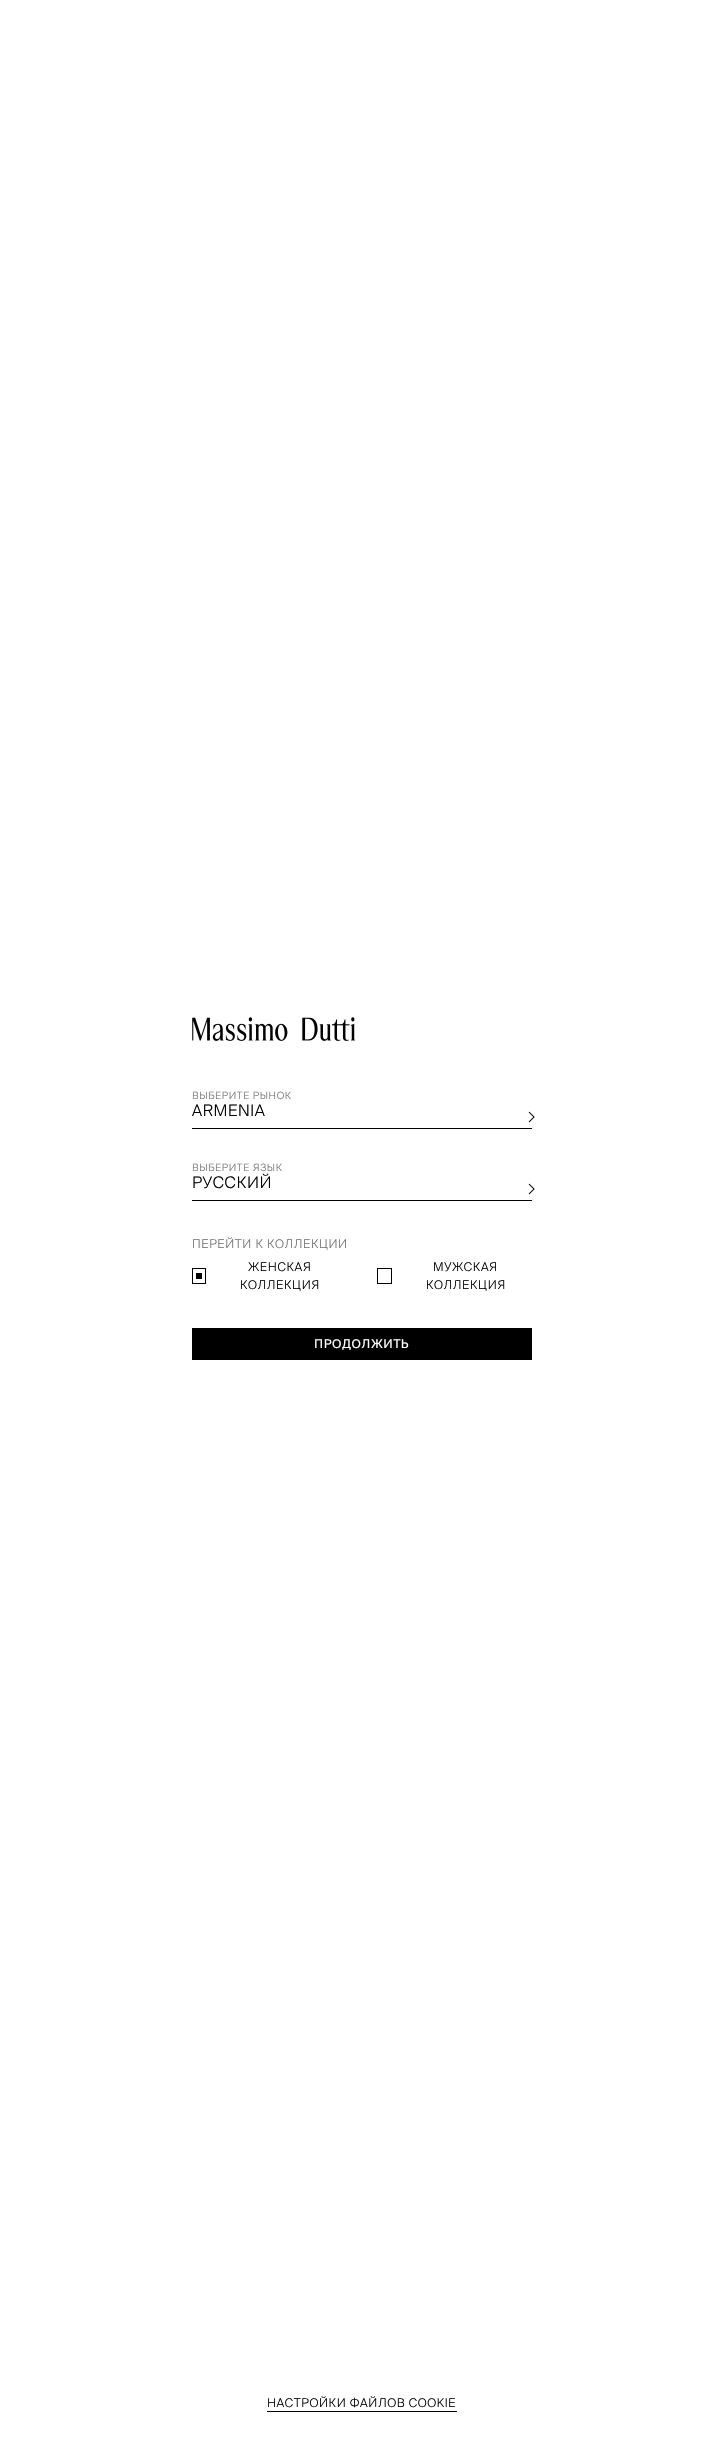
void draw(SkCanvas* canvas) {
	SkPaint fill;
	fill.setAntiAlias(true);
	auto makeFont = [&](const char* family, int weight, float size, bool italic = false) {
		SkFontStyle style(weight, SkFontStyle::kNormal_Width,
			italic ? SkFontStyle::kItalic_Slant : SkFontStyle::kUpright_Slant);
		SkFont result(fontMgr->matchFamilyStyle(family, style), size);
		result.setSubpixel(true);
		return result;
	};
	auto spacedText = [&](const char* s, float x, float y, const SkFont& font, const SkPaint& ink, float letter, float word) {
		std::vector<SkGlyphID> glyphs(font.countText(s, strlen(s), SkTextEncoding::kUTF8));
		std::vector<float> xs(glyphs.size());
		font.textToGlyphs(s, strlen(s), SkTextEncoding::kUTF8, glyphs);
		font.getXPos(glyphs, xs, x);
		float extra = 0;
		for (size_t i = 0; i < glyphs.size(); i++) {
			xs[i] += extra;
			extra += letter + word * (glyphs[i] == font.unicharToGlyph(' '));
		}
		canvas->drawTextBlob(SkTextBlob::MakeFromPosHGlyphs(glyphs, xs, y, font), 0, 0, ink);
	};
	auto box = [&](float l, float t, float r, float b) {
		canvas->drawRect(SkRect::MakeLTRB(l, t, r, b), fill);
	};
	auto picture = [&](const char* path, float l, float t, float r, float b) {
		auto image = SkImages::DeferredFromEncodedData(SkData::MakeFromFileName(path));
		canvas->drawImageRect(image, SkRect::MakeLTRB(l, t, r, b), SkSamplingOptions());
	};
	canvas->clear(0xFFFFFFFF);
	picture("image0.png", 192, 1017, 355, 1041);
	fill.setColor(0xFF000000);
	box(192, 1128, 532, 1129);
	picture("image1.png", 528, 1111, 535, 1123);
	box(192, 1200, 532, 1201);
	picture("image1.png", 528, 1183, 535, 1195);
	fill.setStyle(SkPaint::kStroke_Style);
	fill.setStrokeWidth(1);
	canvas->drawRect(SkRect::MakeLTRB(192.5f, 1268.5f, 205.5f, 1283.5f), fill);
	fill.setStyle(SkPaint::kFill_Style);
	box(196, 1273, 202, 1279);
	fill.setStyle(SkPaint::kStroke_Style);
	canvas->drawRect(SkRect::MakeLTRB(377.5f, 1268.5f, 391.5f, 1283.5f), fill);
	fill.setStyle(SkPaint::kFill_Style);
	box(192, 1328, 532, 1360);
	box(267, 2411, 457, 2412);
	auto font1 = makeFont("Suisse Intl", 300, 10);
	fill.setColor(0xFF737373);
	spacedText("ВЫБЕРИТЕ РЫНОК", 192, 1099, font1, fill, 0.6f, 0);
	auto font2 = makeFont("Suisse Intl", 300, 16);
	fill.setColor(0xFF000000);
	spacedText("ARMENIA", 192, 1116, font2, fill, 0.6f, 0);
	fill.setColor(0xFF737373);
	spacedText("ВЫБЕРИТЕ ЯЗЫК", 192, 1171, font1, fill, 0.6f, 0);
	fill.setColor(0xFF000000);
	spacedText("РУССКИЙ", 192, 1188, font2, fill, 0.6f, 0);
	auto font3 = makeFont("Suisse Intl", 300, 12);
	fill.setColor(0xFF737373);
	spacedText("ПЕРЕЙТИ К КОЛЛЕКЦИИ", 192, 1248, font3, fill, 0.6f, 0);
	fill.setColor(0xFF000000);
	spacedText("ЖЕНСКАЯ", 248, 1271, font3, fill, 0.6f, 0);
	spacedText("КОЛЛЕКЦИЯ", 240, 1289, font3, fill, 0.6f, 0);
	spacedText("МУЖСКАЯ", 433, 1271, font3, fill, 0.6f, 0);
	spacedText("КОЛЛЕКЦИЯ", 426, 1289, font3, fill, 0.6f, 0);
	auto font4 = makeFont("Suisse Intl", 400, 12);
	fill.setColor(0xFFFFFFFF);
	spacedText("ПРОДОЛЖИТЬ", 314, 1348, font4, fill, 0.6f, 0);
	fill.setColor(0xFF000000);
	spacedText("НАСТРОЙКИ ФАЙЛОВ COOKIE", 267, 2407, font3, fill, 0.6f, 0);
}
